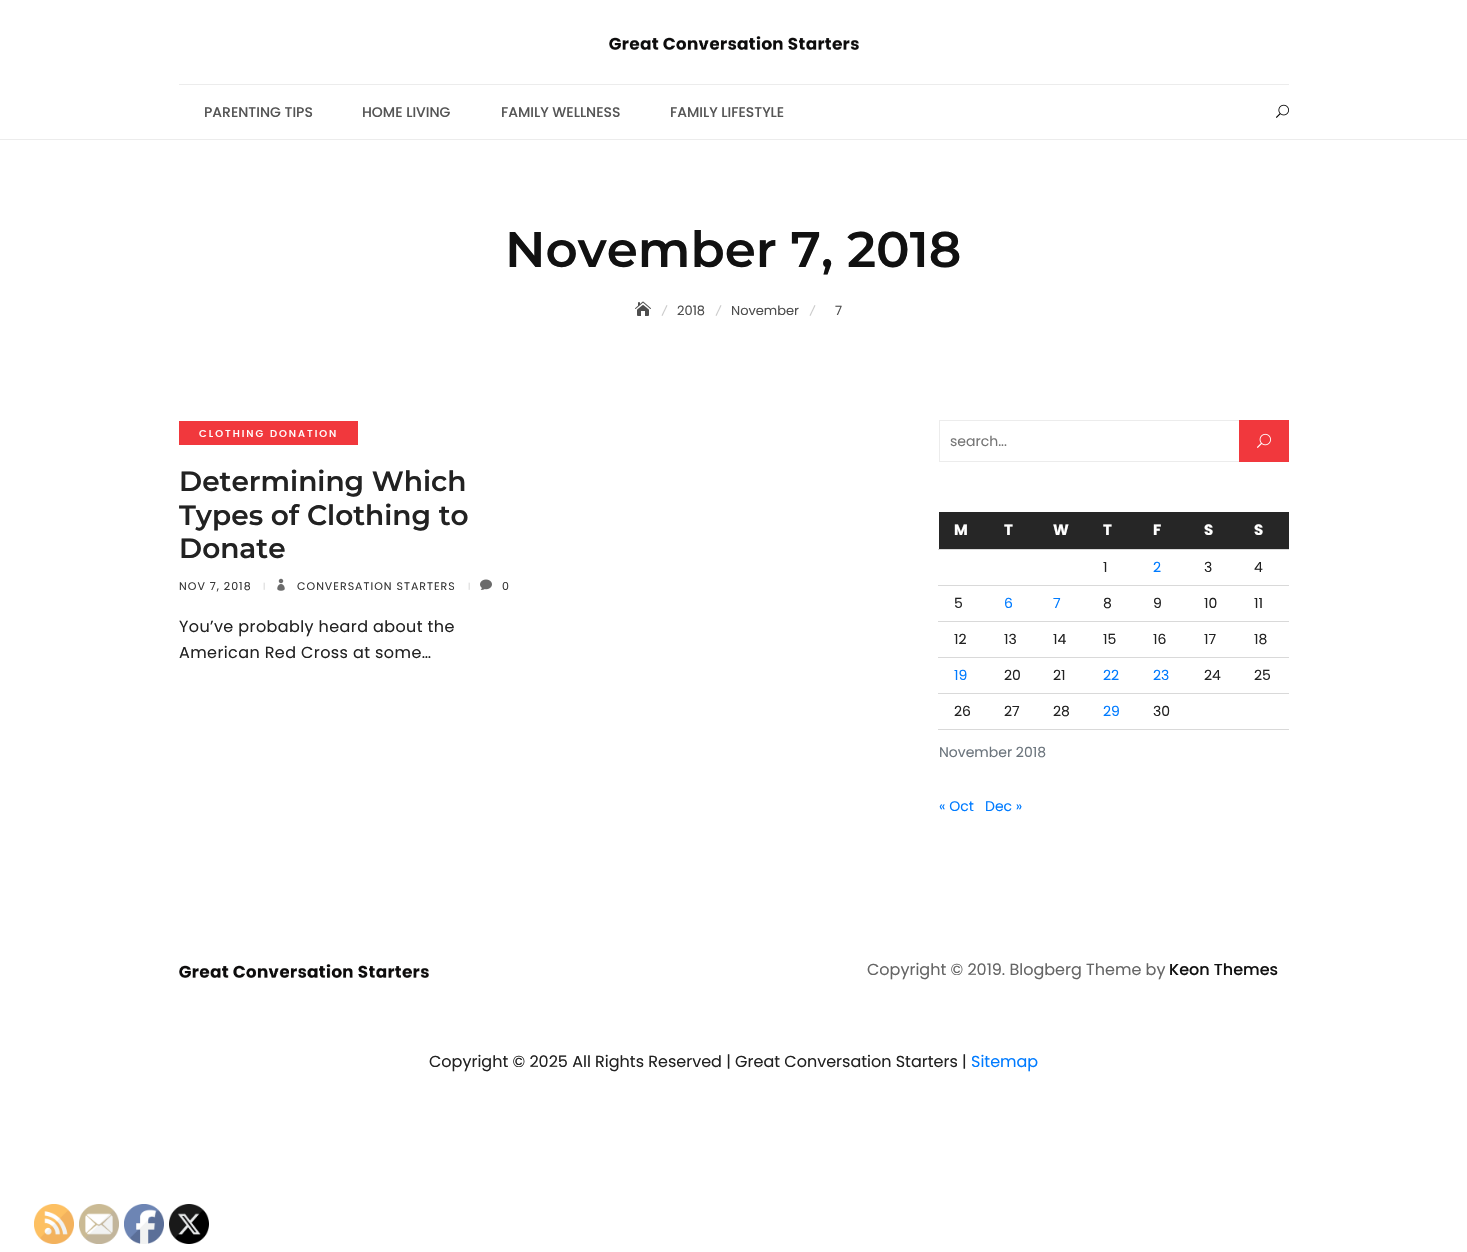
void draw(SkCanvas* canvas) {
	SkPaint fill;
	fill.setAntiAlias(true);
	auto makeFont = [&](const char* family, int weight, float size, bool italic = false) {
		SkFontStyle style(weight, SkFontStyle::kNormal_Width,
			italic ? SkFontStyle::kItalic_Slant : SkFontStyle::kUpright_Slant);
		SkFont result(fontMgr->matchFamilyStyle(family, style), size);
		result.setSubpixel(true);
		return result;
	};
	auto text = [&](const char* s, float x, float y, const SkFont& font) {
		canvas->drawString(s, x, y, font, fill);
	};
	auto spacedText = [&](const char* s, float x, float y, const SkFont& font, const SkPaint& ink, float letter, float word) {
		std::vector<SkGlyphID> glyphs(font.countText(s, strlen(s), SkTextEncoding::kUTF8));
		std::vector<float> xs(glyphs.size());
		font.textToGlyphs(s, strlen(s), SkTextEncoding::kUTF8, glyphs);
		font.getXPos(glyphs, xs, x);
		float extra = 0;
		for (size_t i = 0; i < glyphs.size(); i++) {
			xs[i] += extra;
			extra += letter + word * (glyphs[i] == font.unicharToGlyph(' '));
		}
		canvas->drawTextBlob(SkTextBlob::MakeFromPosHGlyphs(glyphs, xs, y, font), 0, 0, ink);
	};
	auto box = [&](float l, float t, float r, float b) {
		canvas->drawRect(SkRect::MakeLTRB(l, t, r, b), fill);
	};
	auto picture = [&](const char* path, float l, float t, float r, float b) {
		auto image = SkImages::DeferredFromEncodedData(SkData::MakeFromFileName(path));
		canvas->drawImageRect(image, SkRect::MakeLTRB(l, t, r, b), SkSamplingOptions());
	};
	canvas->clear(0xFFFFFFFF);
	picture("image0.png", 609, 36, 859, 50);
	fill.setColor(0xFFECECEC);
	box(179, 84, 1289, 85);
	picture("image1.png", 1276, 104, 1289, 118);
	box(0, 139, 1467, 140);
	picture("image2.png", 635, 301, 651, 316);
	fill.setColor(0xFFCCCCCC);
	canvas->drawPath(SkPathBuilder().moveTo(666.5f, 305).lineTo(667.5f, 305.5f).lineTo(662.5f, 316).lineTo(661.5f, 315.5f).close().detach(), fill);
	canvas->drawPath(SkPathBuilder().moveTo(720.5f, 305).lineTo(721.5f, 305.5f).lineTo(716.5f, 316).lineTo(715.5f, 315.5f).close().detach(), fill);
	canvas->drawPath(SkPathBuilder().moveTo(814.5f, 305).lineTo(815.5f, 305.5f).lineTo(810.5f, 316).lineTo(809.5f, 315.5f).close().detach(), fill);
	fill.setColor(0xFFF1383D);
	box(179, 421, 358, 445);
	picture("image3.png", 277, 578, 285, 591);
	picture("image4.png", 480, 579, 492, 590);
	fill.setStyle(SkPaint::kStroke_Style);
	fill.setStrokeWidth(1);
	fill.setColor(0xFFECECEC);
	canvas->drawRect(SkRect::MakeLTRB(939.5f, 420.5f, 1288.5f, 461.5f), fill);
	fill.setStyle(SkPaint::kFill_Style);
	fill.setColor(0xFFF1383D);
	box(1239, 420, 1289, 462);
	picture("image5.png", 1257, 433, 1271, 448);
	fill.setColor(0xFF262626);
	box(939, 512, 1289, 549);
	fill.setColor(0xFFD9D9D9);
	box(938, 549, 1289, 550);
	box(938, 585, 1289, 586);
	box(938, 621, 1289, 622);
	box(938, 657, 1289, 658);
	box(938, 693, 1289, 694);
	box(938, 729, 1289, 730);
	picture("image6.png", 179, 964, 429, 978);
	picture("image7.png", 34, 1204, 74, 1244);
	picture("image8.png", 79, 1204, 119, 1244);
	picture("image9.png", 124, 1204, 164, 1244);
	picture("image10.png", 169, 1204, 209, 1244);
	auto font1 = makeFont("Poppins", 500, 14);
	fill.setColor(0xFF555555);
	text("PARENTING TIPS", 204, 117, font1);
	text("HOME LIVING", 362, 117, font1);
	text("FAMILY WELLNESS", 501, 117, font1);
	text("FAMILY LIFESTYLE", 670, 117, font1);
	auto font2 = makeFont("Montserrat", 600, 50);
	fill.setColor(0xFF111111);
	text("November 7, 2018", 505, 267, font2);
	auto font3 = makeFont("Poppins", 400, 13);
	fill.setColor(0xFF4E4E4E);
	text("2018", 677, 315, font3);
	text("November", 731, 315, font3);
	text("7", 835, 315, font3);
	auto font4 = makeFont("Poppins", 500, 10);
	fill.setColor(0xFFFFFFFF);
	spacedText("CLOTHING DONATION", 199, 437, font4, fill, 2, 0);
	auto font5 = makeFont("Montserrat", 600, 28);
	fill.setColor(0xFF222222);
	text("Determining Which", 179, 491, font5);
	text("Types of Clothing to", 179, 525, font5);
	text("Donate", 179, 558, font5);
	auto font6 = makeFont("Poppins", 400, 11);
	fill.setColor(0xFF383838);
	spacedText("NOV 7, 2018", 179, 590, font6, fill, 1, 0);
	auto font7 = makeFont("Poppins", 400, 8);
	fill.setColor(0xFFD6D6D6);
	spacedText("|", 263, 589, font7, fill, 1, 0);
	fill.setColor(0xFF383838);
	spacedText("CONVERSATION STARTERS", 297, 590, font6, fill, 1, 0);
	fill.setColor(0xFFD6D6D6);
	spacedText("|", 468, 589, font7, fill, 1, 0);
	fill.setColor(0xFF383838);
	spacedText("0", 502, 590, font6, fill, 1, 0);
	auto font8 = makeFont("Poppins", 400, 16);
	fill.setColor(0xFF222222);
	spacedText("You’ve probably heard about the", 179, 632, font8, fill, 0.4f, 0);
	spacedText("American Red Cross at some…", 179, 658, font8, fill, 0.4f, 0);
	auto font9 = makeFont("Poppins", 400, 14);
	fill.setColor(0xFF757575);
	text("search...", 950, 446, font9);
	auto font10 = makeFont("Poppins", 700, 15);
	fill.setColor(0xFFFFFFFF);
	text("M", 954, 535, font10);
	text("T", 1004, 535, font10);
	text("W", 1053, 535, font10);
	text("T", 1103, 535, font10);
	text("F", 1153, 535, font10);
	text("S", 1204, 535, font10);
	text("S", 1254, 535, font10);
	fill.setColor(0xFF222222);
	text("1", 1103, 572, font9);
	fill.setColor(0xFF007BFF);
	text("2", 1153, 572, font9);
	fill.setColor(0xFF222222);
	text("3", 1204, 572, font9);
	text("4", 1254, 572, font9);
	text("5", 954, 608, font9);
	fill.setColor(0xFF007BFF);
	text("6", 1004, 608, font9);
	text("7", 1053, 608, font9);
	fill.setColor(0xFF222222);
	text("8", 1103, 608, font9);
	text("9", 1153, 608, font9);
	text("10", 1204, 608, font9);
	text("11", 1254, 608, font9);
	text("12", 954, 644, font9);
	text("13", 1004, 644, font9);
	text("14", 1053, 644, font9);
	text("15", 1103, 644, font9);
	text("16", 1153, 644, font9);
	text("17", 1204, 644, font9);
	text("18", 1254, 644, font9);
	fill.setColor(0xFF007BFF);
	text("19", 954, 680, font9);
	fill.setColor(0xFF222222);
	text("20", 1004, 680, font9);
	text("21", 1053, 680, font9);
	fill.setColor(0xFF007BFF);
	text("22", 1103, 680, font9);
	text("23", 1153, 680, font9);
	fill.setColor(0xFF222222);
	text("24", 1204, 680, font9);
	text("25", 1254, 680, font9);
	text("26", 954, 716, font9);
	text("27", 1004, 716, font9);
	text("28", 1053, 716, font9);
	fill.setColor(0xFF007BFF);
	text("29", 1103, 716, font9);
	fill.setColor(0xFF222222);
	text("30", 1153, 716, font9);
	fill.setColor(0xFF6C757D);
	text("November 2018", 939, 757, font9);
	fill.setColor(0xFF007BFF);
	text("« Oct", 939, 811, font9);
	text("Dec »", 985, 811, font9);
	fill.setColor(0xFF656565);
	text("Copyright © 2019. Blogberg Theme by", 867, 975, font8);
	auto font11 = makeFont("Poppins", 500, 16);
	fill.setColor(0xFF111111);
	text("Keon Themes", 1169, 975, font11);
	fill.setColor(0xFF222222);
	text("Copyright © 2025 All Rights Reserved | Great Conversation Starters |", 429, 1067, font8);
	fill.setColor(0xFF007BFF);
	text("Sitemap", 971, 1067, font8);
}
